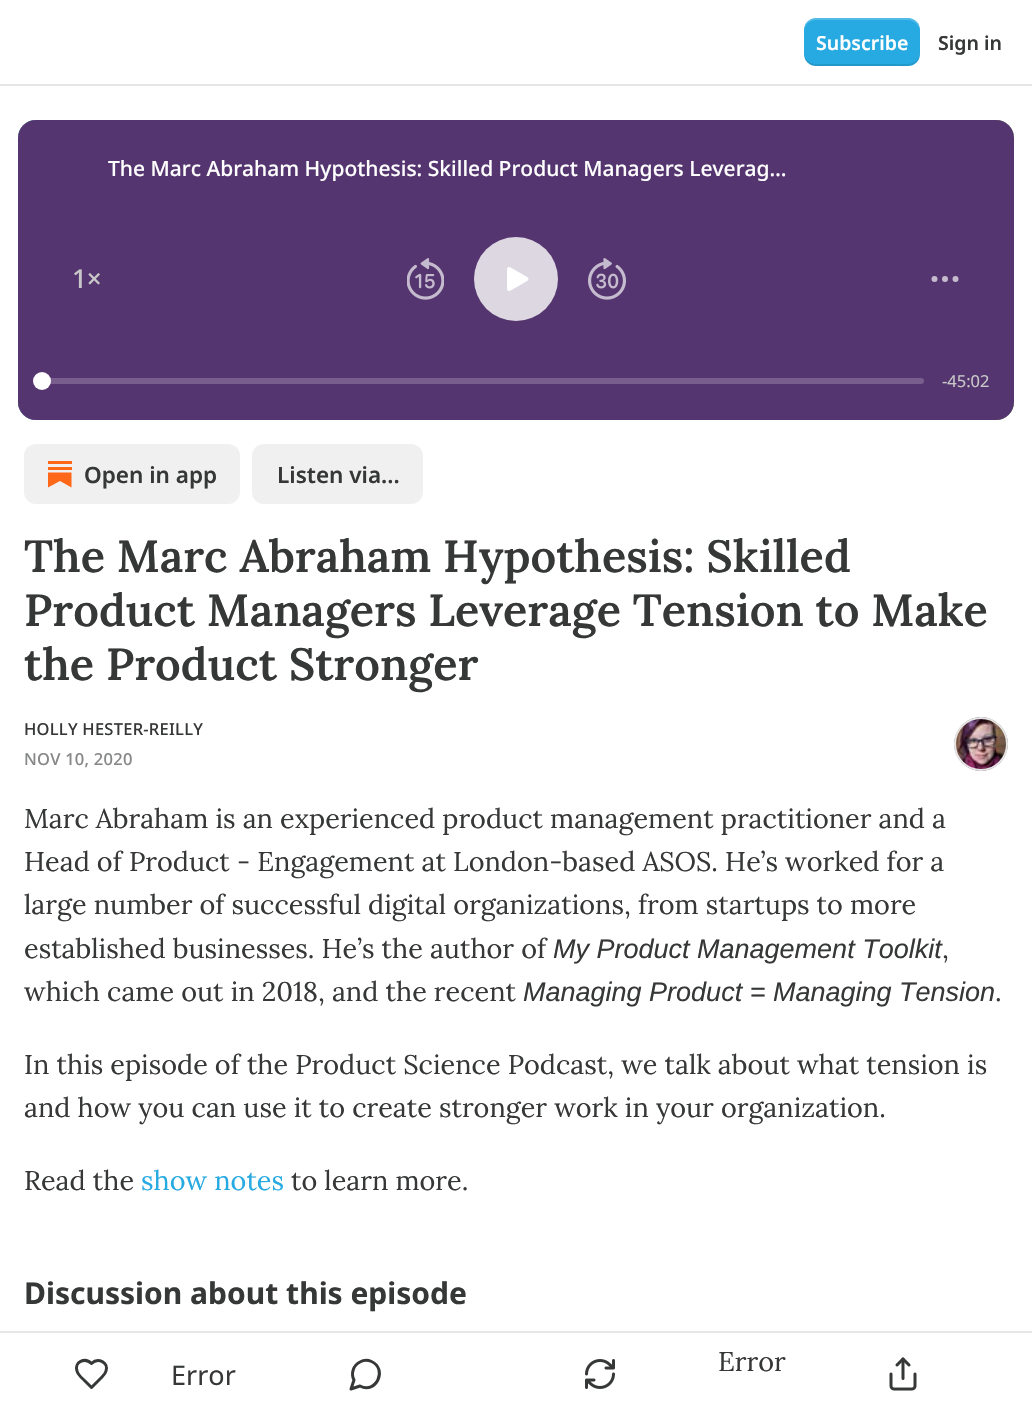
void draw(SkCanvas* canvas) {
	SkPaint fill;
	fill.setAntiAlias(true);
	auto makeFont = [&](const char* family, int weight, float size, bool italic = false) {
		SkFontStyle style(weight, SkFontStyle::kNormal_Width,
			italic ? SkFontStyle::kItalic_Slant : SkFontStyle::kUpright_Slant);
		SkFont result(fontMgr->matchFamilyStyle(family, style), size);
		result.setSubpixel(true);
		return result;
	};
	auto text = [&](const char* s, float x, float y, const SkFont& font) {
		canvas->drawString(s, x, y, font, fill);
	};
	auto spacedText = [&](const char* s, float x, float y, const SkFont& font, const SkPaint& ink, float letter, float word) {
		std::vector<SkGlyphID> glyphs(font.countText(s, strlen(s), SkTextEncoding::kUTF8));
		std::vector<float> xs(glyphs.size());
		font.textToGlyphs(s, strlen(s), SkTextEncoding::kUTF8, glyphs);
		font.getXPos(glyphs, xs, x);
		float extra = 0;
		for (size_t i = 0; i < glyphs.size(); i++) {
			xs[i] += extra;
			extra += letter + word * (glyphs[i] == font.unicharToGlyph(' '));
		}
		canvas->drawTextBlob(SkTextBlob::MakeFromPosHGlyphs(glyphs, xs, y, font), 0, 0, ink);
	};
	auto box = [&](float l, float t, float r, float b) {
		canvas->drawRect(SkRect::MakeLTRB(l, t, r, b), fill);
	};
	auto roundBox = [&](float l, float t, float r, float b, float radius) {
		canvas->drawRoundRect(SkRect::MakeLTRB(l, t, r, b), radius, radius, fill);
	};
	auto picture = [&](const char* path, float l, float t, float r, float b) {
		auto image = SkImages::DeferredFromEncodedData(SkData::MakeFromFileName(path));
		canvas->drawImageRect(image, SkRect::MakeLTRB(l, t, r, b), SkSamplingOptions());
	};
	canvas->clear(0xFFFFFFFF);
	fill.setColor(0xFFE6E6E6);
	box(0, 84, 1032, 86);
	fill.setColor(0xFF27AAE1);
	roundBox(804, 18, 920, 66, 12);
	fill.setColor(0x1A000000);
	canvas->drawPath(SkPathBuilder().moveTo(804, 52).cubicTo(804, 69, 819, 66, 831, 66).lineTo(893, 66).cubicTo(905, 66, 920, 69, 920, 52).cubicTo(920, 59, 914, 64, 908, 64).lineTo(816, 64).cubicTo(809, 64, 804, 59, 804, 52).close().detach(), fill);
	fill.setColor(0x33FFFFFF);
	canvas->drawPath(SkPathBuilder().moveTo(816, 20).lineTo(908, 20).cubicTo(914, 20, 920, 25, 920, 32).cubicTo(920, 15, 905, 18, 893, 18).lineTo(831, 18).cubicTo(819, 18, 804, 15, 804, 32).cubicTo(804, 25, 809, 20, 816, 20).close().detach(), fill);
	picture("image0.png", 18, 120, 1014, 420);
	fill.setColor(0xFFA8A8A8);
	roundBox(18, 120, 1014, 420, 18);
	fill.setColor(0xBF390F5C);
	roundBox(18, 120, 1014, 420, 18);
	picture("image1.png", 407, 258, 444, 300);
	fill.setColor(0xFFDDD7E2);
	canvas->drawCircle(516, 279, 42, fill);
	picture("image2.png", 507, 267, 529, 291);
	picture("image3.png", 588, 258, 626, 300);
	fill.setStyle(SkPaint::kStroke_Style);
	fill.setStrokeWidth(3);
	fill.setColor(0xFFC5BACE);
	canvas->drawCircle(945, 279, 1.5f, fill);
	canvas->drawCircle(955.5f, 279, 1.5f, fill);
	canvas->drawCircle(934.5f, 279, 1.5f, fill);
	fill.setStyle(SkPaint::kFill_Style);
	fill.setColor(0xFF775E8C);
	roundBox(42, 378, 924, 384, 3);
	fill.setColor(0xFFFFFFFF);
	canvas->drawCircle(42, 381, 9, fill);
	fill.setColor(0xFFF0F0F0);
	roundBox(24, 444, 240, 504, 12);
	fill.setColor(0xFFFF6719);
	box(48, 467, 72, 470);
	canvas->drawPath(SkPathBuilder().moveTo(48, 472.5f).lineTo(48, 487.5f).lineTo(60, 481).lineTo(71.5f, 487.5f).lineTo(71.5f, 472.5f).close().detach(), fill);
	box(48, 461, 72, 464);
	fill.setColor(0xFFF0F0F0);
	roundBox(252, 444, 423, 504, 12);
	fill.setStyle(SkPaint::kStroke_Style);
	fill.setStrokeWidth(2);
	fill.setColor(0xFFE6E6E6);
	canvas->drawCircle(981, 744, 26, fill);
	picture("image4.png", 954, 717, 1008, 771);
	canvas->drawCircle(981, 744, 26, fill);
	fill.setStyle(SkPaint::kFill_Style);
	box(0, 1331, 1032, 1333);
	fill.setStyle(SkPaint::kStroke_Style);
	fill.setStrokeWidth(3);
	fill.setStrokeCap(SkPaint::kRound_Cap);
	fill.setStrokeJoin(SkPaint::kRound_Join);
	fill.setColor(0xFF363737);
	canvas->drawPath(SkPathBuilder().moveTo(102, 1377).cubicTo(103.5f, 1375.5f, 105.5f, 1373.5f, 106, 1371).cubicTo(109, 1362.5f, 98, 1357, 91.5f, 1363.5f).cubicTo(85, 1357, 74, 1362, 77, 1371).cubicTo(78, 1375, 82, 1378, 84.5f, 1380.5f).lineTo(91.5f, 1387.5f).close().detach(), fill);
	canvas->drawPath(SkPathBuilder().moveTo(360, 1386).cubicTo(376, 1394.5f, 388, 1369, 371.5f, 1361.5f).cubicTo(368, 1360, 363.5f, 1360, 360, 1362).cubicTo(353.5f, 1365, 350.5f, 1373.5f, 354, 1380).lineTo(351, 1389).close().detach(), fill);
	picture("image5.png", 585, 1359, 615, 1389);
	picture("image6.png", 889, 1357, 917, 1391);
	auto font1 = makeFont("Noto Sans", 600, 19.5f);
	fill.setStyle(SkPaint::kFill_Style);
	fill.setColor(0xFFFFFFFF);
	text("Subscribe", 816, 50, font1);
	fill.setColor(0xFF363737);
	text("Sign in", 938, 50, font1);
	auto font2 = makeFont("Noto Sans", 500, 21);
	fill.setColor(0xFFFFFFFF);
	text("The Marc Abraham Hypothesis: Skilled Product Managers Leverag…", 108, 176, font2);
	auto font3 = makeFont("Noto Sans", 500, 26);
	fill.setColor(0xFFC8C8C8);
	text("1×", 72, 288, font3);
	auto font4 = makeFont("Noto Sans", 400, 16.5f);
	text("-45:02", 942, 387, font4);
	auto font5 = makeFont("Noto Sans", 600, 22.5f);
	fill.setColor(0xFF363737);
	text("Open in app", 84, 483, font5);
	text("Listen via...", 277, 483, font5);
	auto font6 = makeFont("Lora", 600, 45);
	text("The Marc Abraham Hypothesis: Skilled", 24, 572, font6);
	text("Product Managers Leverage Tension to Make", 24, 626, font6);
	text("the Product Stronger", 24, 680, font6);
	auto font7 = makeFont("Noto Sans", 500, 16.5f);
	spacedText("HOLLY HESTER-REILLY", 24, 735, font7, fill, 0.25f, 0);
	fill.setColor(0xFF868787);
	spacedText("NOV 10, 2020", 24, 765, font7, fill, 0.25f, 0);
	auto font8 = makeFont("Lora", 400, 27);
	fill.setColor(0xFF363737);
	text("Marc Abraham is an experienced product management practitioner and a", 24, 828, font8);
	text("Head of Product - Engagement at London-based ASOS. He’s worked for a", 24, 871, font8);
	text("large number of successful digital organizations, from startups to more", 24, 914, font8);
	text("established businesses. He’s the author of", 24, 958, font8);
	auto font9 = makeFont("Liberation Sans", 400, 27, true);
	text("My Product Management Toolkit", 553, 958, font9);
	text(",", 942, 958, font8);
	text("which came out in 2018, and the recent", 24, 1001, font8);
	text("Managing Product = Managing Tension", 523, 1001, font9);
	text(".", 995, 1001, font8);
	text("In this episode of the Product Science Podcast, we talk about what tension is", 24, 1074, font8);
	text("and how you can use it to create stronger work in your organization.", 24, 1117, font8);
	text("Read the", 24, 1190, font8);
	fill.setColor(0xFF27AAE1);
	text("show notes", 141, 1190, font8);
	fill.setColor(0xFF363737);
	text("to learn more.", 291, 1190, font8);
	auto font10 = makeFont("Noto Sans", 700, 30);
	text("Discussion about this episode", 24, 1304, font10);
	auto font11 = makeFont("Noto Sans", 400, 27);
	text("Error", 171, 1385, font11);
	text("Error", 718, 1371, font8);
}
